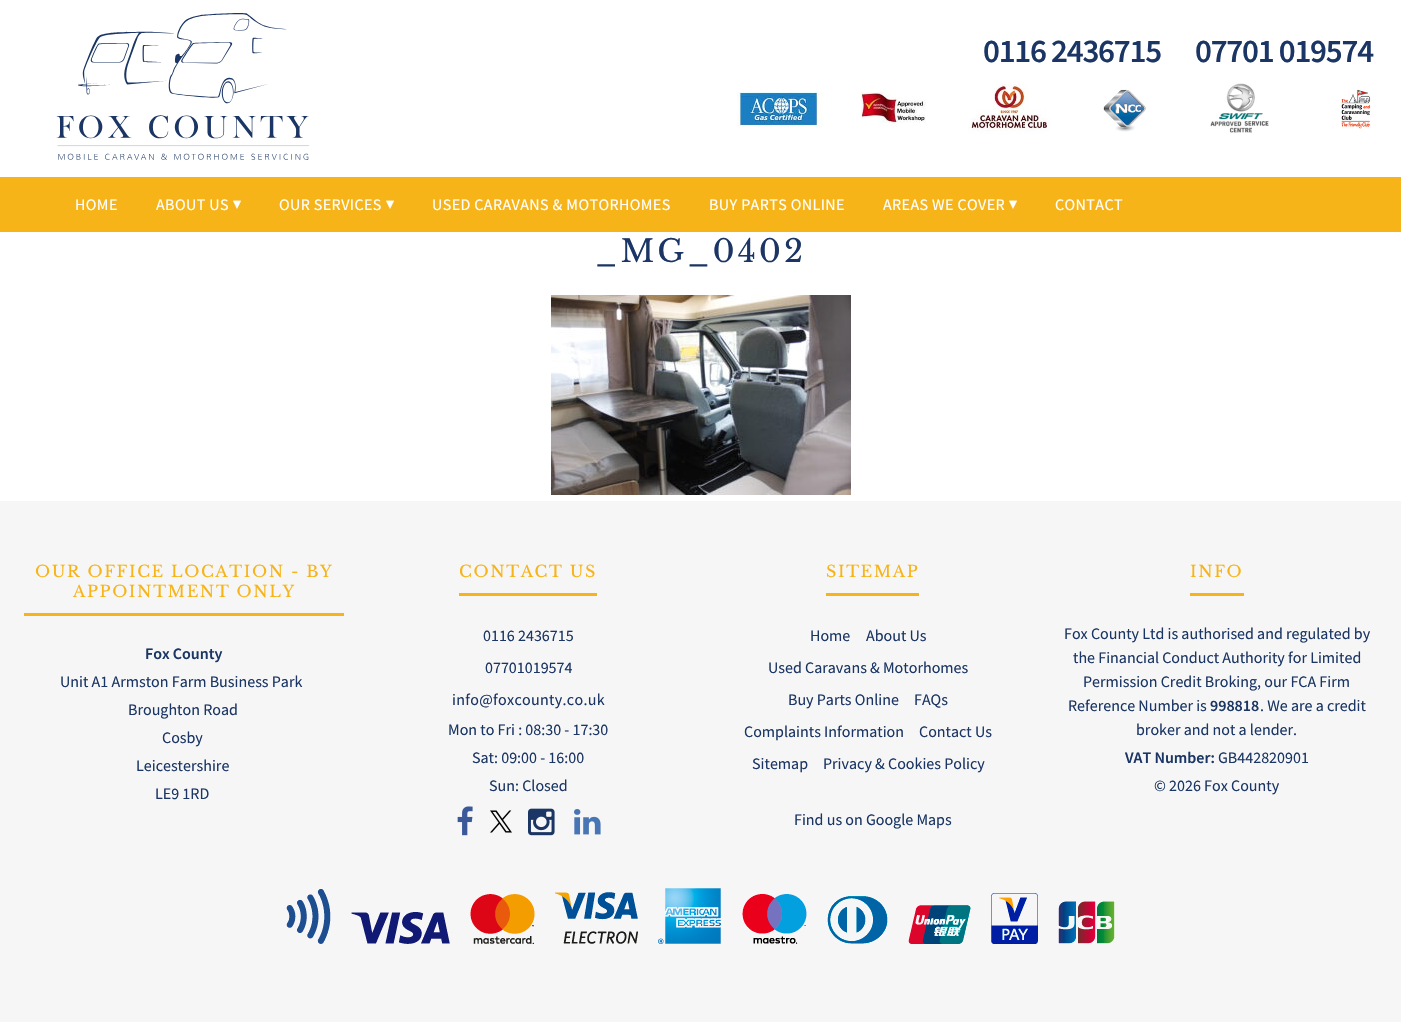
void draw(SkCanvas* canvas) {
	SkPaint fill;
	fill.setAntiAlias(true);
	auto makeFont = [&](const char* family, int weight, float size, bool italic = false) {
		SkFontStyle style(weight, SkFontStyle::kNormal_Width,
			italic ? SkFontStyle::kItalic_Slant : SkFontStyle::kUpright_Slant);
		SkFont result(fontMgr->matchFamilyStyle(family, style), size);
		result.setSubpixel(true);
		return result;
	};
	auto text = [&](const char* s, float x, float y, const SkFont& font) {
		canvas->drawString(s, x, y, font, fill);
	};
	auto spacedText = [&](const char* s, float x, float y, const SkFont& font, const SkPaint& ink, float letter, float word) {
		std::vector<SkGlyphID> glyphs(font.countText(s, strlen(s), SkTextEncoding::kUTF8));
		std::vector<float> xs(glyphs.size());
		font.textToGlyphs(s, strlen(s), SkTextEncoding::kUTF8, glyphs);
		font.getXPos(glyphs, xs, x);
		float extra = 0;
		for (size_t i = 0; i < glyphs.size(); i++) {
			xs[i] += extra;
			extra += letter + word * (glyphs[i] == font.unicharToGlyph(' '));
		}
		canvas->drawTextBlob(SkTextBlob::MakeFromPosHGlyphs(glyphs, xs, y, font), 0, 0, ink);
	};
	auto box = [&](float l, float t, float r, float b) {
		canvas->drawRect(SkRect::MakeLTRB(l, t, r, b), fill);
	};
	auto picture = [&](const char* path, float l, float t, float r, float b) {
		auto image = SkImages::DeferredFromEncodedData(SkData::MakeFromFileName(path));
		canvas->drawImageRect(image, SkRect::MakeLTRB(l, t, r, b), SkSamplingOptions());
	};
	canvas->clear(0xFFFFFFFF);
	picture("image0.png", 56, 13, 309, 160);
	picture("image1.png", 737, 92, 823, 128);
	picture("image2.png", 861, 92, 926, 127);
	picture("image3.png", 968, 84, 1050, 134);
	picture("image4.png", 1103, 89, 1146, 132);
	picture("image5.png", 1210, 83, 1269, 133);
	picture("image6.png", 1341, 89, 1371, 129);
	fill.setColor(0xFFF6B418);
	box(0, 177, 1401, 232);
	picture("image7.png", 551, 295, 851, 495);
	fill.setColor(0xFFF6F6F6);
	box(0, 501, 1401, 1022);
	fill.setColor(0xFFF6B418);
	box(24, 613, 344, 616);
	box(459, 593, 597, 596);
	picture("image8.png", 457, 806, 473, 836);
	picture("image9.png", 490, 810, 512, 833);
	picture("image10.png", 528, 808, 555, 836);
	picture("image11.png", 574, 809, 601, 835);
	box(826, 593, 919, 596);
	box(1190, 593, 1244, 596);
	picture("image12.png", 286, 889, 331, 944);
	picture("image13.png", 351, 912, 450, 944);
	picture("image14.png", 470, 894, 535, 944);
	picture("image15.png", 555, 892, 638, 944);
	picture("image16.png", 658, 888, 721, 944);
	picture("image17.png", 742, 894, 807, 944);
	picture("image18.png", 827, 896, 888, 944);
	picture("image19.png", 908, 905, 971, 944);
	picture("image20.png", 991, 893, 1038, 944);
	picture("image21.png", 1058, 901, 1115, 944);
	auto font1 = makeFont("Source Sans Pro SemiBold", 600, 33);
	fill.setColor(0xFF1B3664);
	spacedText("0116 2436715", 983, 62, font1, fill, -1.25f, 0);
	spacedText("07701 019574", 1195, 62, font1, fill, -1.25f, 0);
	auto font2 = makeFont("Source Sans Pro", 400, 16);
	fill.setColor(0xFFFFFFFF);
	spacedText("HOME", 75, 210, font2, fill, 0.4f, 0);
	spacedText("ABOUT US", 156, 210, font2, fill, 0.4f, 0);
	auto font3 = makeFont("DejaVu Sans", 400, 16);
	spacedText("▾", 233, 209, font3, fill, 0.4f, 0);
	spacedText("OUR SERVICES", 279, 210, font2, fill, 0.4f, 0);
	spacedText("▾", 386, 209, font3, fill, 0.4f, 0);
	spacedText("USED CARAVANS & MOTORHOMES", 432, 210, font2, fill, 0.4f, 0);
	spacedText("BUY PARTS ONLINE", 709, 210, font2, fill, 0.4f, 0);
	spacedText("AREAS WE COVER", 883, 210, font2, fill, 0.4f, 0);
	spacedText("▾", 1009, 209, font3, fill, 0.4f, 0);
	spacedText("CONTACT", 1055, 210, font2, fill, 0.4f, 0);
	auto font4 = makeFont("Libre Baskerville", 400, 31);
	fill.setColor(0xFF1B3664);
	spacedText("_MG_0402", 595, 262, font4, fill, 3, 0);
	auto font5 = makeFont("Libre Baskerville", 400, 16);
	fill.setColor(0xFFF6B418);
	spacedText("OUR OFFICE LOCATION - BY", 35, 577, font5, fill, 1.6f, 0);
	spacedText("APPOINTMENT ONLY", 73, 597, font5, fill, 1.6f, 0);
	auto font6 = makeFont("Source Sans Pro SemiBold", 600, 16);
	fill.setColor(0xFF1B3664);
	text("Fox County", 145, 659, font6);
	text("Unit A1 Armston Farm Business Park", 60, 687, font2);
	text("Broughton Road", 128, 715, font2);
	text("Cosby", 162, 743, font2);
	text("Leicestershire", 136, 771, font2);
	text("LE9 1RD", 155, 799, font2);
	fill.setColor(0xFFF6B418);
	spacedText("CONTACT US", 459, 577, font5, fill, 1.6f, 0);
	fill.setColor(0xFF1B3664);
	text("0116 2436715", 483, 641, font2);
	text("07701019574", 485, 673, font2);
	spacedText("info@foxcounty.co.uk", 452, 705, font2, fill, 0.3f, 0);
	text("Mon to Fri : 08:30 - 17:30", 448, 735, font2);
	text("Sat: 09:00 - 16:00", 472, 763, font2);
	text("Sun: Closed", 489, 791, font2);
	fill.setColor(0xFFF6B418);
	spacedText("SITEMAP", 826, 577, font5, fill, 1.6f, 0);
	fill.setColor(0xFF1B3664);
	text("Home", 810, 641, font2);
	text("About Us", 866, 641, font2);
	text("Used Caravans & Motorhomes", 768, 673, font2);
	text("Buy Parts Online", 788, 705, font2);
	text("FAQs", 914, 705, font2);
	text("Complaints Information", 744, 737, font2);
	text("Contact Us", 919, 737, font2);
	text("Sitemap", 752, 769, font2);
	text("Privacy & Cookies Policy", 823, 769, font2);
	text("Find us on Google Maps", 794, 825, font2);
	fill.setColor(0xFFF6B418);
	spacedText("INFO", 1190, 577, font5, fill, 1.6f, 0);
	fill.setColor(0xFF1B3664);
	text("Fox County Ltd is authorised and regulated by", 1064, 639, font2);
	text("the Financial Conduct Authority for Limited", 1073, 663, font2);
	text("Permission Credit Broking, our FCA Firm", 1083, 687, font2);
	text("Reference Number is", 1068, 711, font2);
	text("998818", 1210, 711, font6);
	text(". We are a credit", 1260, 711, font2);
	text("broker and not a lender.", 1136, 735, font2);
	text("VAT Number:", 1125, 763, font6);
	text("GB442820901", 1218, 763, font2);
	text("© 2026 Fox County", 1154, 791, font2);
}
